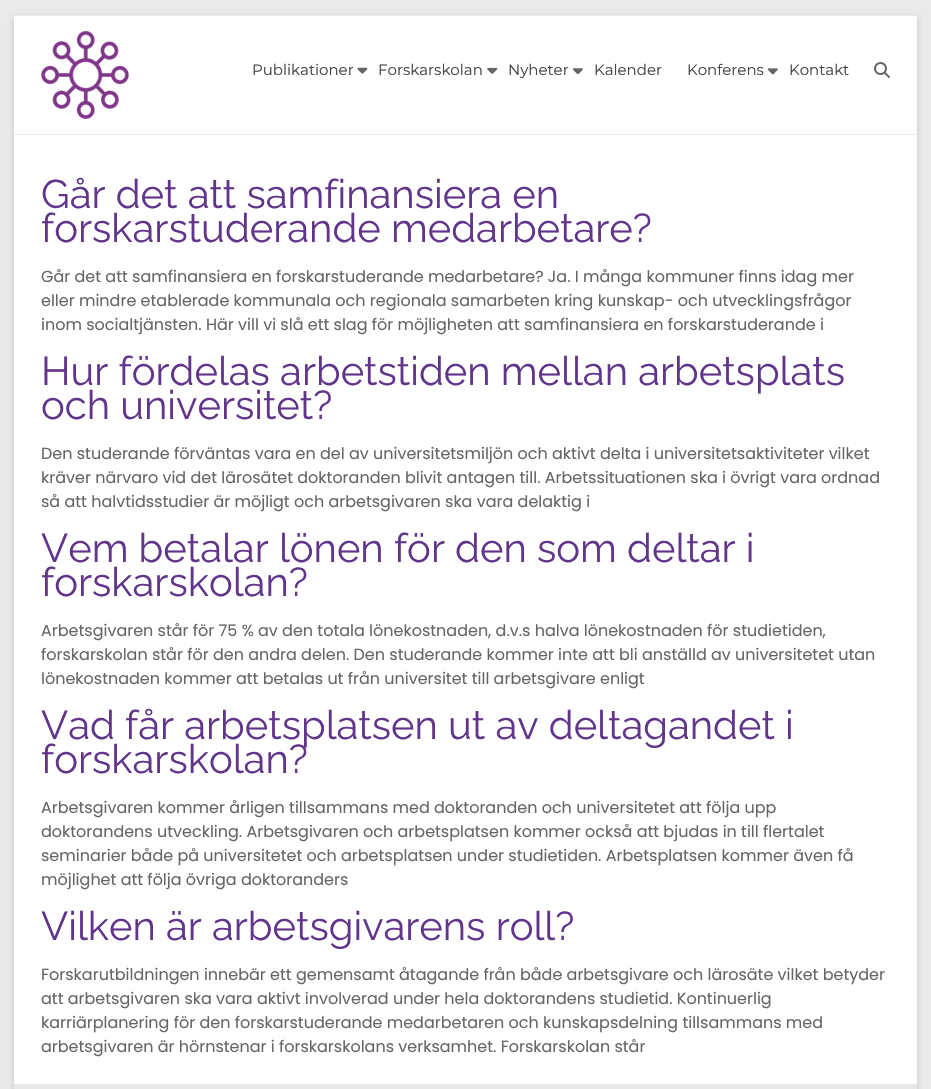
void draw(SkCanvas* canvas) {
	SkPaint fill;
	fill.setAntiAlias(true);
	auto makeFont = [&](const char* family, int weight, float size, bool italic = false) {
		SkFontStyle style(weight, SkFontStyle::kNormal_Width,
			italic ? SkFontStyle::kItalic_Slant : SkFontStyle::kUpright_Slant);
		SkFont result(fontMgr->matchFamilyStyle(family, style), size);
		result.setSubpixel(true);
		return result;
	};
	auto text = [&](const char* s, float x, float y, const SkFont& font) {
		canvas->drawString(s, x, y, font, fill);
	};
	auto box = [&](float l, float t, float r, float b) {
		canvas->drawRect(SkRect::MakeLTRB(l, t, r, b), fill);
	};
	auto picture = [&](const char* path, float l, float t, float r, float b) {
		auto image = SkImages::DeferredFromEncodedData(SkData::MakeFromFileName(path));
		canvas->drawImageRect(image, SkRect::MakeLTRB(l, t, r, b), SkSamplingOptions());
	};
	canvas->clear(0xFFEAEAEA);
	fill.setColor(0x4D646464);
	fill.setMaskFilter(SkMaskFilter::MakeBlur(kNormal_SkBlurStyle, 3));
	canvas->drawRect(SkRect::MakeLTRB(14, 17, 917, 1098), fill);
	fill.setMaskFilter(nullptr);
	fill.setColor(0xFFFFFFFF);
	box(14, 16, 917, 1084);
	fill.setColor(0xFFEAEAEA);
	box(14, 15, 917, 16);
	box(14, 134, 917, 135);
	picture("image0.png", 41, 31, 129, 119);
	picture("image1.png", 357, 67, 368, 74);
	picture("image2.png", 487, 67, 498, 74);
	picture("image3.png", 572, 68, 583, 75);
	picture("image4.png", 767, 68, 778, 75);
	picture("image5.png", 874, 62, 890, 78);
	fill.setColor(0xFFE8E8E8);
	box(14, 1085, 917, 1089);
	fill.setColor(0xFFEAEAEA);
	box(14, 1084, 917, 1085);
	auto font1 = makeFont("Montserrat", 100, 15);
	fill.setColor(0xFF444444);
	text("Publikationer", 252, 75, font1);
	text("Forskarskolan", 378, 75, font1);
	text("Nyheter", 508, 75, font1);
	text("Kalender", 594, 75, font1);
	text("Konferens", 687, 75, font1);
	text("Kontakt", 789, 75, font1);
	auto font2 = makeFont("Raleway", 100, 40);
	fill.setColor(0xFF62358C);
	text("Går det att samfinansiera en", 41, 208, font2);
	text("forskarstuderande medarbetare?", 41, 242, font2);
	auto font3 = makeFont("Poppins", 400, 16);
	fill.setColor(0xFF666666);
	text("Går det att samfinansiera en forskarstuderande medarbetare? Ja. I många kommuner finns idag mer", 41, 282, font3);
	text("eller mindre etablerade kommunala och regionala samarbeten kring kunskap- och utvecklingsfrågor", 41, 306, font3);
	text("inom socialtjänsten. Här vill vi slå ett slag för möjligheten att samfinansiera en forskarstuderande i", 41, 330, font3);
	fill.setColor(0xFF62358C);
	text("Hur fördelas arbetstiden mellan arbetsplats", 41, 385, font2);
	text("och universitet?", 41, 419, font2);
	fill.setColor(0xFF666666);
	text("Den studerande förväntas vara en del av universitetsmiljön och aktivt delta i universitetsaktiviteter vilket", 41, 459, font3);
	text("kräver närvaro vid det lärosätet doktoranden blivit antagen till. Arbetssituationen ska i övrigt vara ordnad", 41, 483, font3);
	text("så att halvtidsstudier är möjligt och arbetsgivaren ska vara delaktig i", 41, 507, font3);
	fill.setColor(0xFF62358C);
	text("Vem betalar lönen för den som deltar i", 41, 562, font2);
	text("forskarskolan?", 41, 596, font2);
	fill.setColor(0xFF666666);
	text("Arbetsgivaren står för 75 % av den totala lönekostnaden, d.v.s halva lönekostnaden för studietiden,", 41, 636, font3);
	text("forskarskolan står för den andra delen. Den studerande kommer inte att bli anställd av universitetet utan", 41, 660, font3);
	text("lönekostnaden kommer att betalas ut från universitet till arbetsgivare enligt", 41, 684, font3);
	fill.setColor(0xFF62358C);
	text("Vad får arbetsplatsen ut av deltagandet i", 41, 739, font2);
	text("forskarskolan?", 41, 773, font2);
	fill.setColor(0xFF666666);
	text("Arbetsgivaren kommer årligen tillsammans med doktoranden och universitetet att följa upp", 41, 813, font3);
	text("doktorandens utveckling. Arbetsgivaren och arbetsplatsen kommer också att bjudas in till flertalet", 41, 837, font3);
	text("seminarier både på universitetet och arbetsplatsen under studietiden. Arbetsplatsen kommer även få", 41, 861, font3);
	text("möjlighet att följa övriga doktoranders", 41, 885, font3);
	fill.setColor(0xFF62358C);
	text("Vilken är arbetsgivarens roll?", 41, 940, font2);
	fill.setColor(0xFF666666);
	text("Forskarutbildningen innebär ett gemensamt åtagande från både arbetsgivare och lärosäte vilket betyder", 41, 980, font3);
	text("att arbetsgivaren ska vara aktivt involverad under hela doktorandens studietid. Kontinuerlig", 41, 1004, font3);
	text("karriärplanering för den forskarstuderande medarbetaren och kunskapsdelning tillsammans med", 41, 1028, font3);
	text("arbetsgivaren är hörnstenar i forskarskolans verksamhet. Forskarskolan står", 41, 1052, font3);
}
